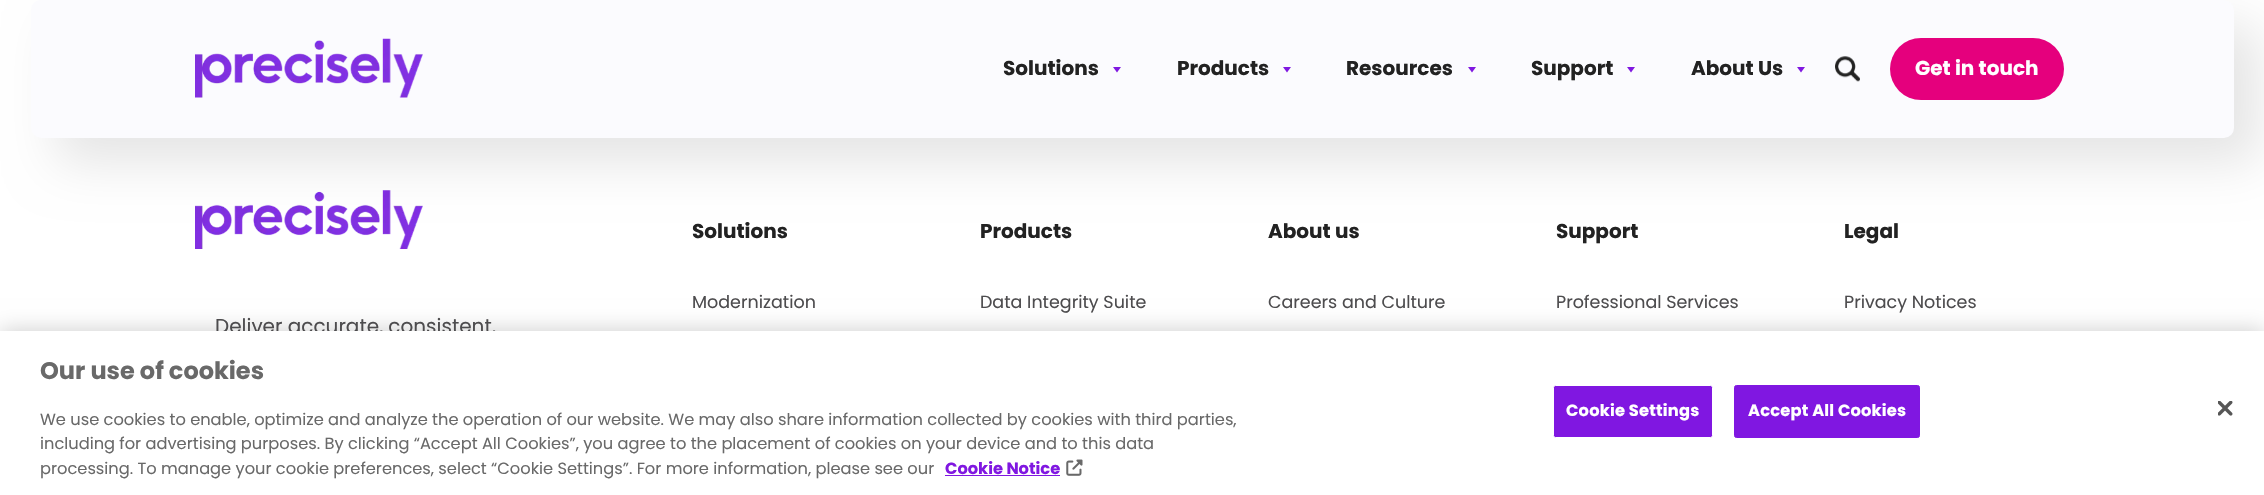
void draw(SkCanvas* canvas) {
	SkPaint fill;
	fill.setAntiAlias(true);
	auto makeFont = [&](const char* family, int weight, float size, bool italic = false) {
		SkFontStyle style(weight, SkFontStyle::kNormal_Width,
			italic ? SkFontStyle::kItalic_Slant : SkFontStyle::kUpright_Slant);
		SkFont result(fontMgr->matchFamilyStyle(family, style), size);
		result.setSubpixel(true);
		return result;
	};
	auto text = [&](const char* s, float x, float y, const SkFont& font) {
		canvas->drawString(s, x, y, font, fill);
	};
	auto spacedText = [&](const char* s, float x, float y, const SkFont& font, const SkPaint& ink, float letter, float word) {
		std::vector<SkGlyphID> glyphs(font.countText(s, strlen(s), SkTextEncoding::kUTF8));
		std::vector<float> xs(glyphs.size());
		font.textToGlyphs(s, strlen(s), SkTextEncoding::kUTF8, glyphs);
		font.getXPos(glyphs, xs, x);
		float extra = 0;
		for (size_t i = 0; i < glyphs.size(); i++) {
			xs[i] += extra;
			extra += letter + word * (glyphs[i] == font.unicharToGlyph(' '));
		}
		canvas->drawTextBlob(SkTextBlob::MakeFromPosHGlyphs(glyphs, xs, y, font), 0, 0, ink);
	};
	auto box = [&](float l, float t, float r, float b) {
		canvas->drawRect(SkRect::MakeLTRB(l, t, r, b), fill);
	};
	auto roundBox = [&](float l, float t, float r, float b, float radius) {
		canvas->drawRoundRect(SkRect::MakeLTRB(l, t, r, b), radius, radius, fill);
	};
	auto picture = [&](const char* path, float l, float t, float r, float b) {
		auto image = SkImages::DeferredFromEncodedData(SkData::MakeFromFileName(path));
		canvas->drawImageRect(image, SkRect::MakeLTRB(l, t, r, b), SkSamplingOptions());
	};
	canvas->clear(0xFFFFFFFF);
	picture("image2.png", 195, 190, 423, 249);
	fill.setColor(0x1A000000);
	fill.setMaskFilter(SkMaskFilter::MakeBlur(kNormal_SkBlurStyle, 25));
	canvas->drawRoundRect(SkRect::MakeLTRB(56, 25, 2259, 163), 10, 10, fill);
	fill.setMaskFilter(nullptr);
	fill.setColor(0xFFFBFBFE);
	roundBox(31, 0, 2234, 138, 10);
	picture("image0.png", 195, 38, 423, 98);
	fill.setColor(0xFF8017E1);
	canvas->drawPath(SkPathBuilder().moveTo(1121, 67).lineTo(1117, 72.5f).lineTo(1113, 67).close().detach(), fill);
	canvas->drawPath(SkPathBuilder().moveTo(1291, 67).lineTo(1287, 72.5f).lineTo(1283, 67).close().detach(), fill);
	canvas->drawPath(SkPathBuilder().moveTo(1476, 67).lineTo(1472, 72.5f).lineTo(1468, 67).close().detach(), fill);
	canvas->drawPath(SkPathBuilder().moveTo(1635, 67).lineTo(1631, 72.5f).lineTo(1627, 67).close().detach(), fill);
	canvas->drawPath(SkPathBuilder().moveTo(1805, 67).lineTo(1801, 72.5f).lineTo(1797, 67).close().detach(), fill);
	picture("image1.png", 1835, 56, 1860, 82);
	fill.setColor(0xFFE5007D);
	roundBox(1890, 38, 2064, 100, 31);
	fill.setColor(0x33000000);
	fill.setMaskFilter(SkMaskFilter::MakeBlur(kNormal_SkBlurStyle, 11));
	canvas->drawRect(SkRect::MakeLTRB(0, 331, 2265, 495), fill);
	fill.setMaskFilter(nullptr);
	auto font1 = makeFont("Poppins", 700, 20);
	fill.setColor(0xFF222222);
	text("Solutions", 1003, 75, font1);
	text("Products", 1177, 75, font1);
	text("Resources", 1346, 75, font1);
	text("Support", 1531, 75, font1);
	text("About Us", 1691, 75, font1);
	fill.setColor(0xFFFFFFFF);
	text("Get in touch", 1915, 75, font1);
	fill.setColor(0xFF222222);
	text("Solutions", 692, 238, font1);
	auto font2 = makeFont("Poppins", 400, 17.5f);
	fill.setColor(0xFF4D4C4E);
	text("Modernization", 692, 308, font2);
	fill.setColor(0xFF222222);
	text("Products", 980, 238, font1);
	fill.setColor(0xFF4D4C4E);
	text("Data Integrity Suite", 980, 308, font2);
	fill.setColor(0xFF222222);
	text("About us", 1268, 238, font1);
	fill.setColor(0xFF4D4C4E);
	text("Careers and Culture", 1268, 308, font2);
	fill.setColor(0xFF222222);
	text("Support", 1556, 238, font1);
	fill.setColor(0xFF4D4C4E);
	text("Professional Services", 1556, 308, font2);
	fill.setColor(0xFF222222);
	text("Legal", 1844, 238, font1);
	fill.setColor(0xFF4D4C4E);
	text("Privacy Notices", 1844, 308, font2);
	auto font3 = makeFont("Poppins", 400, 20);
	text("Deliver accurate, consistent,", 215, 333, font3);
	fill.setColor(0xFFFFFFFF);
	box(0, 331, 2264, 495);
	auto font4 = makeFont("Poppins", 700, 24);
	fill.setColor(0xFF696969);
	text("Our use of cookies", 40, 379, font4);
	auto font5 = makeFont("Poppins", 400, 16.25f);
	text("We use cookies to enable, optimize and analyze the operation of our website. We may also share information collected by cookies with third parties,", 40, 425, font5);
	text("including for advertising purposes. By clicking “Accept All Cookies”, you agree to the placement of cookies on your device and to this data", 40, 449, font5);
	text("processing. To manage your cookie preferences, select “Cookie Settings”. For more information, please see our", 40, 474, font5);
	auto font6 = makeFont("Poppins", 700, 16.25f);
	fill.setColor(0xFF8017E1);
	text("Cookie Notice", 945, 474, font6);
	box(945, 475, 1060, 476);
	picture("image3.png", 1066, 459, 1083, 476);
	canvas->drawRoundRect(SkRect::MakeLTRB(1553.5f, 385.5f, 1712.5f, 437.5f), 2, 2, fill);
	fill.setStyle(SkPaint::kStroke_Style);
	fill.setStrokeWidth(1);
	fill.setColor(0xFFFFFFFF);
	canvas->drawRoundRect(SkRect::MakeLTRB(1553.5f, 385.5f, 1712.5f, 437.5f), 2, 2, fill);
	fill.setStyle(SkPaint::kFill_Style);
	spacedText("Cookie Settings", 1566, 416, font6, fill, 0.2f, 0);
	fill.setColor(0xFF8017E1);
	canvas->drawRoundRect(SkRect::MakeLTRB(1734.5f, 385.5f, 1919.5f, 437.5f), 2, 2, fill);
	fill.setStyle(SkPaint::kStroke_Style);
	canvas->drawRoundRect(SkRect::MakeLTRB(1734.5f, 385.5f, 1919.5f, 437.5f), 2, 2, fill);
	fill.setStyle(SkPaint::kFill_Style);
	fill.setColor(0xFFFFFFFF);
	spacedText("Accept All Cookies", 1748, 416, font6, fill, 0.2f, 0);
	picture("image4.png", 2218, 401, 2233, 416);
}
